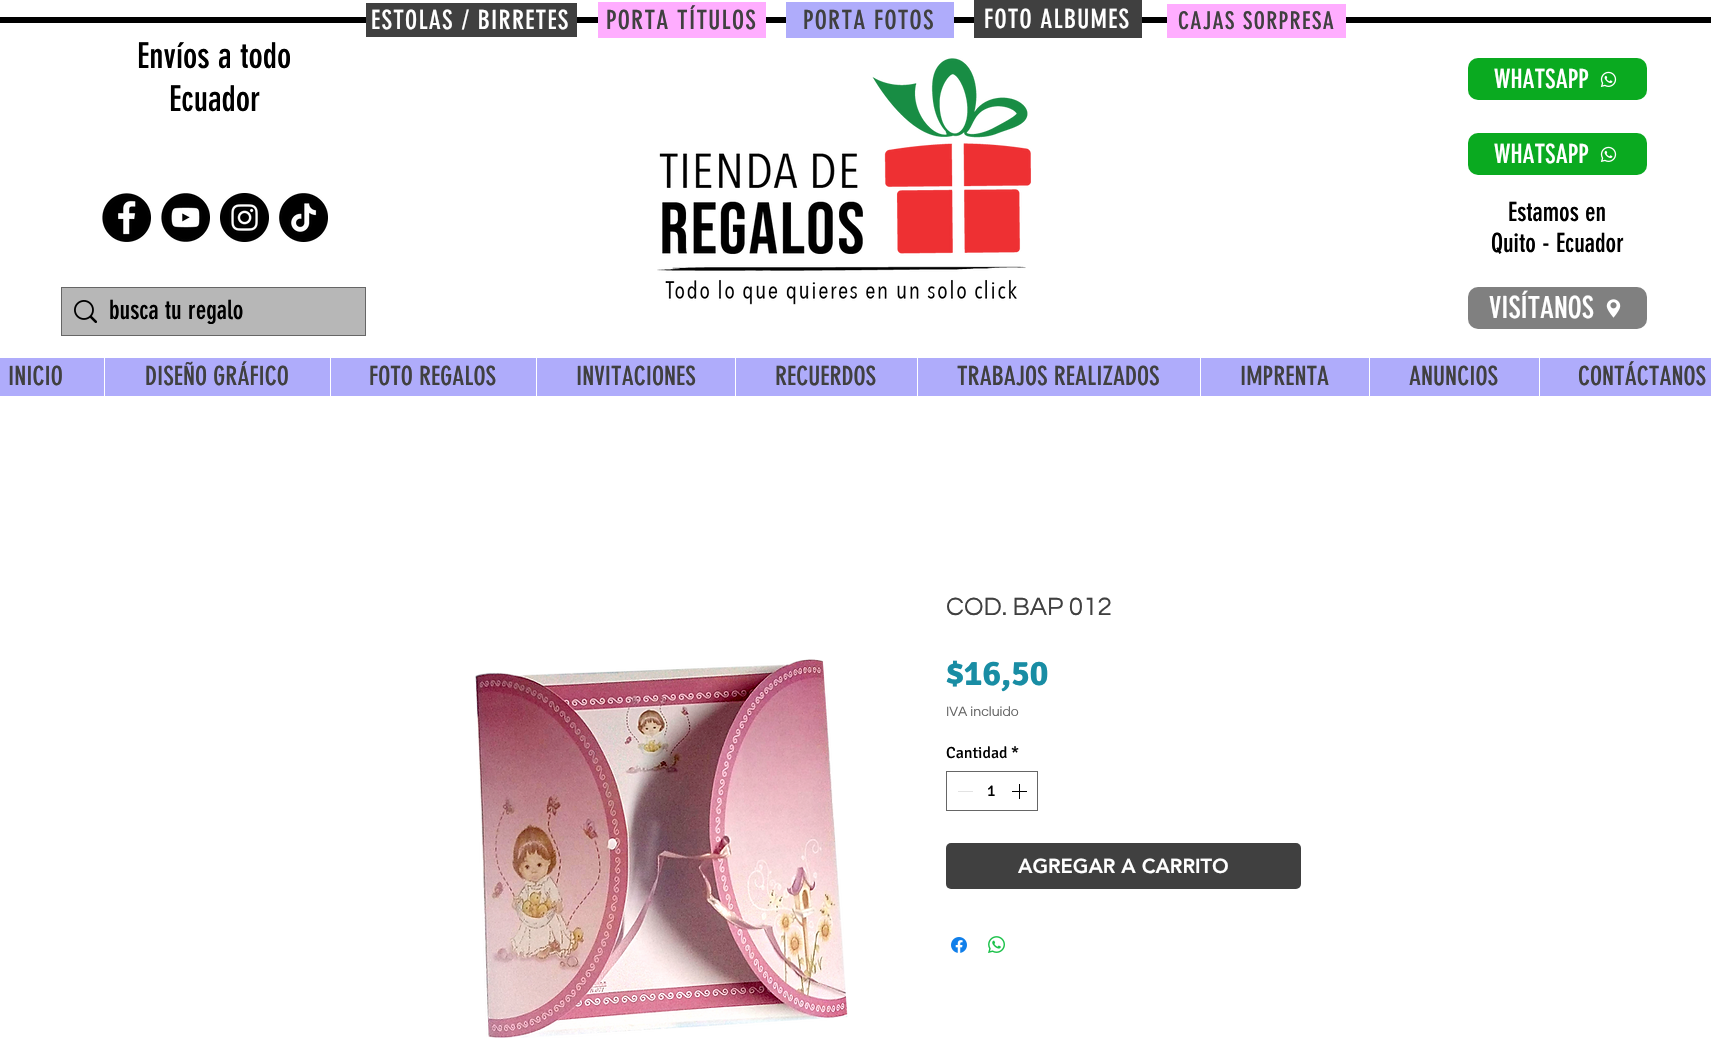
void draw(SkCanvas* canvas) {
	SkPaint fill;
	fill.setAntiAlias(true);
	auto makeFont = [&](const char* family, int weight, float size, bool italic = false) {
		SkFontStyle style(weight, SkFontStyle::kNormal_Width,
			italic ? SkFontStyle::kItalic_Slant : SkFontStyle::kUpright_Slant);
		SkFont result(fontMgr->matchFamilyStyle(family, style), size);
		result.setSubpixel(true);
		return result;
	};
	auto text = [&](const char* s, float x, float y, const SkFont& font) {
		canvas->drawString(s, x, y, font, fill);
	};
	auto spacedText = [&](const char* s, float x, float y, const SkFont& font, const SkPaint& ink, float letter, float word) {
		std::vector<SkGlyphID> glyphs(font.countText(s, strlen(s), SkTextEncoding::kUTF8));
		std::vector<float> xs(glyphs.size());
		font.textToGlyphs(s, strlen(s), SkTextEncoding::kUTF8, glyphs);
		font.getXPos(glyphs, xs, x);
		float extra = 0;
		for (size_t i = 0; i < glyphs.size(); i++) {
			xs[i] += extra;
			extra += letter + word * (glyphs[i] == font.unicharToGlyph(' '));
		}
		canvas->drawTextBlob(SkTextBlob::MakeFromPosHGlyphs(glyphs, xs, y, font), 0, 0, ink);
	};
	auto box = [&](float l, float t, float r, float b) {
		canvas->drawRect(SkRect::MakeLTRB(l, t, r, b), fill);
	};
	auto roundBox = [&](float l, float t, float r, float b, float radius) {
		canvas->drawRoundRect(SkRect::MakeLTRB(l, t, r, b), radius, radius, fill);
	};
	auto picture = [&](const char* path, float l, float t, float r, float b) {
		auto image = SkImages::DeferredFromEncodedData(SkData::MakeFromFileName(path));
		canvas->drawImageRect(image, SkRect::MakeLTRB(l, t, r, b), SkSamplingOptions());
	};
	canvas->clear(0xFFFFFFFF);
	fill.setColor(0xFF000000);
	box(0, 17, 1711, 23);
	fill.setColor(0xFF404040);
	box(366, 3, 577, 37);
	fill.setColor(0xFFFFADFF);
	box(598, 2, 766, 38);
	fill.setColor(0xFFAFACFB);
	box(786, 2, 954, 38);
	fill.setColor(0xFF404040);
	box(974, 0, 1142, 38);
	fill.setColor(0xFFFFADFF);
	box(1167, 4, 1346, 38);
	picture("image0.png", 657, 58, 1031, 305);
	fill.setColor(0xFF0AAA20);
	roundBox(1468, 58, 1647, 100, 10);
	picture("image1.png", 1600, 71, 1617, 87);
	roundBox(1468, 133, 1647, 175, 10);
	picture("image1.png", 1600, 146, 1617, 162);
	picture("image2.png", 102, 193, 151, 242);
	picture("image3.png", 161, 193, 210, 242);
	picture("image4.png", 220, 193, 269, 242);
	picture("image5.png", 279, 193, 328, 242);
	fill.setStyle(SkPaint::kStroke_Style);
	fill.setStrokeWidth(1);
	fill.setColor(0xFF666666);
	canvas->drawRect(SkRect::MakeLTRB(61.5f, 287.5f, 365.5f, 335.5f), fill);
	fill.setStyle(SkPaint::kFill_Style);
	fill.setColor(0xFFB7B7B7);
	box(62, 288, 365, 335);
	picture("image6.png", 74, 300, 97, 323);
	fill.setColor(0xFF808080);
	roundBox(1468, 287, 1647, 329, 10);
	picture("image7.png", 1606, 299, 1621, 318);
	fill.setColor(0xFFAFACFB);
	box(0, 358, 1711, 396);
	fill.setColor(0xFFFFFFFF);
	box(104, 358, 105, 396);
	box(330, 358, 331, 396);
	box(536, 358, 537, 396);
	box(735, 358, 736, 396);
	box(917, 358, 918, 396);
	box(1200, 358, 1201, 396);
	box(1369, 358, 1370, 396);
	box(1539, 358, 1540, 396);
	picture("image8.png", 475, 659, 848, 1038);
	fill.setStyle(SkPaint::kStroke_Style);
	fill.setColor(0xFF666666);
	canvas->drawRect(SkRect::MakeLTRB(946.5f, 771.5f, 1037.5f, 810.5f), fill);
	fill.setStyle(SkPaint::kFill_Style);
	fill.setColor(0xFFE3E3E3);
	box(958, 791, 973, 792);
	picture("image9.png", 1012, 784, 1027, 799);
	fill.setColor(0xFF404040);
	roundBox(946, 843, 1301, 889, 5);
	picture("image10.png", 951, 937, 967, 953);
	picture("image11.png", 988, 936, 1005, 953);
	auto font1 = makeFont("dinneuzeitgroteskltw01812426", 400, 26);
	fill.setColor(0xFFFFFFFF);
	spacedText("ESTOLAS / BIRRETES", 371, 29, font1, fill, 1.25f, 0);
	fill.setColor(0xFF404040);
	spacedText("PORTA TÍTULOS", 606, 29, font1, fill, 1.25f, 0);
	spacedText("PORTA FOTOS", 803, 29, font1, fill, 1.25f, 0);
	fill.setColor(0xFFFFFFFF);
	spacedText("FOTO ALBUMES", 984, 28, font1, fill, 1.25f, 0);
	auto font2 = makeFont("dinneuzeitgroteskltw01812426", 400, 24);
	fill.setColor(0xFF404040);
	spacedText("CAJAS SORPRESA", 1178, 29, font2, fill, 1.25f, 0);
	auto font3 = makeFont("dinneuzeitgroteskltw01812426", 400, 35);
	fill.setColor(0xFF000000);
	text("Envíos a todo", 137, 68, font3);
	text("Ecuador", 169, 111, font3);
	fill.setColor(0xFFFFFFFF);
	text("WHATSAPP", 1494, 88, font1);
	text("WHATSAPP", 1494, 163, font1);
	fill.setColor(0xFF000000);
	text("Estamos en", 1508, 221, font1);
	text("Quito - Ecuador", 1491, 252, font1);
	text("busca tu regalo", 109, 319, font1);
	auto font4 = makeFont("dinneuzeitgroteskltw01812426", 400, 30);
	fill.setColor(0xFFFFFFFF);
	text("VISÍTANOS", 1489, 318, font4);
	fill.setColor(0xFF404040);
	text("INICIO", 8, 385, font1);
	text("DISEÑO GRÁFICO", 145, 385, font1);
	text("FOTO REGALOS", 369, 385, font1);
	text("INVITACIONES", 576, 385, font1);
	text("RECUERDOS", 775, 385, font1);
	text("TRABAJOS REALIZADOS", 957, 385, font1);
	text("IMPRENTA", 1240, 385, font1);
	text("ANUNCIOS", 1409, 385, font1);
	text("CONTÁCTANOS", 1578, 385, font1);
	auto font5 = makeFont("Questrial", 400, 26);
	text("COD. BAP 012", 946, 615, font5);
	auto font6 = makeFont("Signika", 700, 35);
	fill.setColor(0xFF198DA4);
	text("$16,50", 946, 685, font6);
	auto font7 = makeFont("Questrial", 400, 14);
	fill.setColor(0xFF666666);
	text("IVA incluido", 946, 716, font7);
	auto font8 = makeFont("Signika", 400, 16);
	fill.setColor(0xFF000000);
	text("Cantidad", 946, 758, font8);
	text("*", 1011, 758, font8);
	text("1", 987, 796, font8);
	auto font9 = makeFont("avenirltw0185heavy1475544", 900, 20);
	fill.setColor(0xFFFFFFFF);
	text("AGREGAR A CARRITO", 1018, 873, font9);
}
